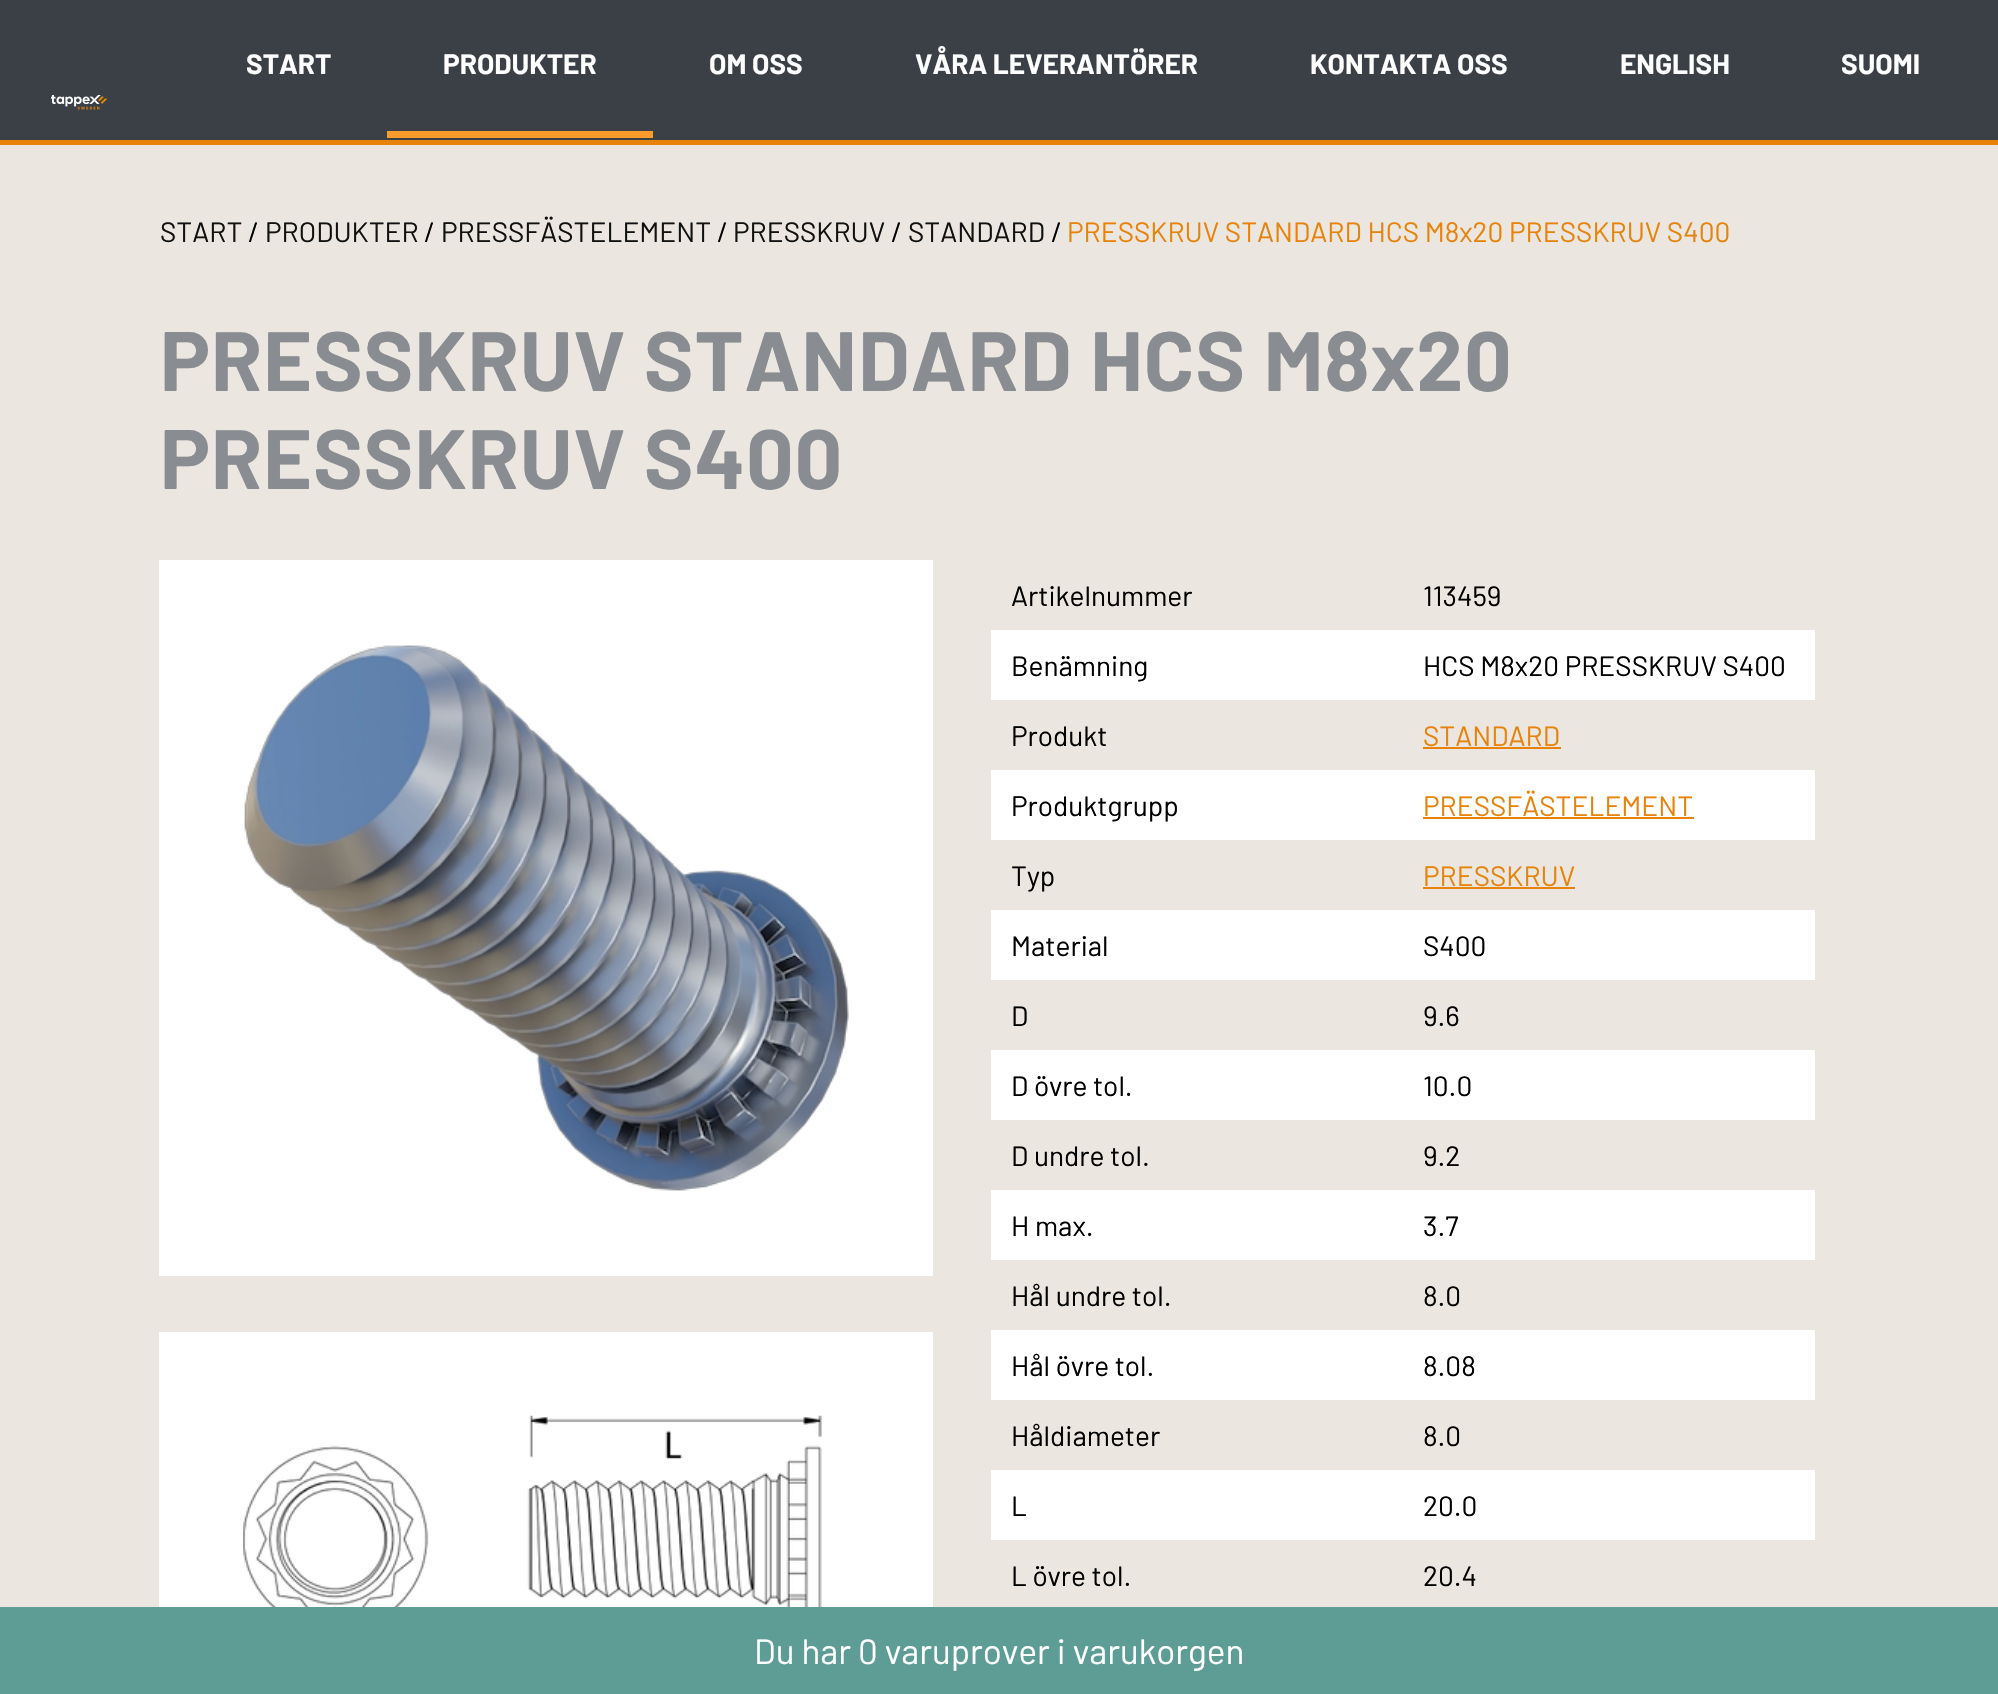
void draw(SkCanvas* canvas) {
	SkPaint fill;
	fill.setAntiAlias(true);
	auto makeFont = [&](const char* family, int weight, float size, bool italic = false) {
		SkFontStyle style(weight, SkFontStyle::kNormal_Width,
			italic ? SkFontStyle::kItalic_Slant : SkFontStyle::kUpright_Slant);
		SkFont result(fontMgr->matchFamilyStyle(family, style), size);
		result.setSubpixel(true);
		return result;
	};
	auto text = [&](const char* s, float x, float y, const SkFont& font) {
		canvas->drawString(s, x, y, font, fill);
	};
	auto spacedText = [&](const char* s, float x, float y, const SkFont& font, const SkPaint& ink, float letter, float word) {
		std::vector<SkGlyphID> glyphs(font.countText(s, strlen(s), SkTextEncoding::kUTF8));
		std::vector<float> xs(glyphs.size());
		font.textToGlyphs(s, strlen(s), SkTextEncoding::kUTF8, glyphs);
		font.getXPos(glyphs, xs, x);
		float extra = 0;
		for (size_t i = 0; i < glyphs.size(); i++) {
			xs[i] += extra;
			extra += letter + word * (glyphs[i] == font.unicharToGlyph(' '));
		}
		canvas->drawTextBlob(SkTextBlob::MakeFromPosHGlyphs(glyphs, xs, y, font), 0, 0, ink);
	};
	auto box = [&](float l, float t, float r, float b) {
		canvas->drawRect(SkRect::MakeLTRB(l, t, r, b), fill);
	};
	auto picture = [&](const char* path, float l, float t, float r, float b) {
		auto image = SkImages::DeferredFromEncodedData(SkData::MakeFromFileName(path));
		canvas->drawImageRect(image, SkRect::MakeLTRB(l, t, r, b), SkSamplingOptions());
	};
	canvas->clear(0xFFEBE6DF);
	fill.setColor(0xFF3B4047);
	box(0, 0, 1998, 140);
	fill.setColor(0xFFE7830A);
	box(0, 140, 1998, 145);
	fill.setColor(0xFFFA9C2B);
	box(387, 131, 653, 138);
	picture("image0.png", 51, 95, 107, 110);
	fill.setColor(0xFFFFFFFF);
	box(159, 560, 933, 1276);
	picture("image1.png", 244, 645, 849, 1191);
	box(159, 1332, 933, 1607);
	picture("image2.png", 243, 1415, 822, 1607);
	box(991, 630, 1815, 700);
	fill.setColor(0xFFE7830A);
	box(1423, 747, 1561, 749);
	fill.setColor(0xFFFFFFFF);
	box(991, 770, 1815, 840);
	fill.setColor(0xFFE7830A);
	box(1423, 817, 1694, 819);
	box(1423, 887, 1575, 889);
	fill.setColor(0xFFFFFFFF);
	box(991, 910, 1815, 980);
	box(991, 1050, 1815, 1120);
	box(991, 1190, 1815, 1260);
	box(991, 1330, 1815, 1400);
	box(991, 1470, 1815, 1540);
	fill.setColor(0xFF5E9C96);
	box(0, 1607, 1998, 1694);
	auto font1 = makeFont("Barlow", 700, 28);
	fill.setColor(0xFFFFFFFF);
	text("START", 246, 74, font1);
	text("PRODUKTER", 443, 74, font1);
	text("OM OSS", 709, 74, font1);
	text("VÅRA LEVERANTÖRER", 915, 74, font1);
	text("KONTAKTA OSS", 1310, 74, font1);
	text("ENGLISH", 1620, 74, font1);
	text("SUOMI", 1841, 74, font1);
	auto font2 = makeFont("Barlow", 400, 28);
	fill.setColor(0xFF111111);
	text("START", 160, 242, font2);
	fill.setColor(0xFF000000);
	text("/", 248, 242, font2);
	fill.setColor(0xFF111111);
	text("PRODUKTER", 265, 242, font2);
	fill.setColor(0xFF000000);
	text("/", 424, 242, font2);
	fill.setColor(0xFF111111);
	text("PRESSFÄSTELEMENT", 441, 242, font2);
	fill.setColor(0xFF000000);
	text("/", 717, 242, font2);
	fill.setColor(0xFF111111);
	text("PRESSKRUV", 733, 242, font2);
	fill.setColor(0xFF000000);
	text("/", 891, 242, font2);
	fill.setColor(0xFF111111);
	text("STANDARD", 908, 242, font2);
	fill.setColor(0xFF000000);
	text("/", 1051, 242, font2);
	fill.setColor(0xFFE7830A);
	text("PRESSKRUV STANDARD HCS M8x20 PRESSKRUV S400", 1067, 242, font2);
	auto font3 = makeFont("Barlow", 700, 84);
	fill.setColor(0xFF898C91);
	spacedText("PRESSKRUV STANDARD HCS M8x20", 160, 391, font3, fill, 0.7f, 0);
	spacedText("PRESSKRUV S400", 160, 489, font3, fill, 0.7f, 0);
	fill.setColor(0xFF000000);
	text("Artikelnummer", 1011, 606, font2);
	text("113459", 1423, 606, font2);
	text("Benämning", 1011, 676, font2);
	text("HCS M8x20 PRESSKRUV S400", 1423, 676, font2);
	text("Produkt", 1011, 746, font2);
	fill.setColor(0xFFE7830A);
	text("STANDARD", 1423, 746, font2);
	fill.setColor(0xFF000000);
	text("Produktgrupp", 1011, 816, font2);
	fill.setColor(0xFFE7830A);
	text("PRESSFÄSTELEMENT", 1423, 816, font2);
	fill.setColor(0xFF000000);
	text("Typ", 1011, 886, font2);
	fill.setColor(0xFFE7830A);
	text("PRESSKRUV", 1423, 886, font2);
	fill.setColor(0xFF000000);
	text("Material", 1011, 956, font2);
	text("S400", 1423, 956, font2);
	text("D", 1011, 1026, font2);
	text("9.6", 1423, 1026, font2);
	text("D övre tol.", 1011, 1096, font2);
	text("10.0", 1423, 1096, font2);
	text("D undre tol.", 1011, 1166, font2);
	text("9.2", 1423, 1166, font2);
	text("H max.", 1011, 1236, font2);
	text("3.7", 1423, 1236, font2);
	text("Hål undre tol.", 1011, 1306, font2);
	text("8.0", 1423, 1306, font2);
	text("Hål övre tol.", 1011, 1376, font2);
	text("8.08", 1423, 1376, font2);
	text("Håldiameter", 1011, 1446, font2);
	text("8.0", 1423, 1446, font2);
	text("L", 1011, 1516, font2);
	text("20.0", 1423, 1516, font2);
	text("L övre tol.", 1011, 1586, font2);
	text("20.4", 1423, 1586, font2);
	auto font4 = makeFont("Barlow", 400, 35);
	fill.setColor(0xFFFFFFFF);
	text("Du har 0 varuprover i varukorgen", 754, 1664, font4);
}
